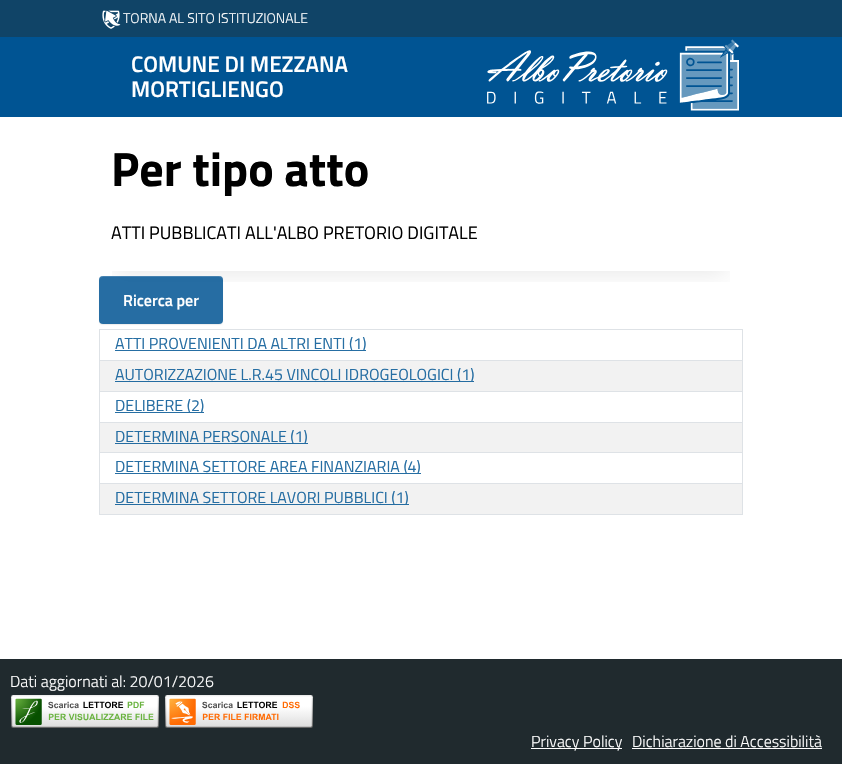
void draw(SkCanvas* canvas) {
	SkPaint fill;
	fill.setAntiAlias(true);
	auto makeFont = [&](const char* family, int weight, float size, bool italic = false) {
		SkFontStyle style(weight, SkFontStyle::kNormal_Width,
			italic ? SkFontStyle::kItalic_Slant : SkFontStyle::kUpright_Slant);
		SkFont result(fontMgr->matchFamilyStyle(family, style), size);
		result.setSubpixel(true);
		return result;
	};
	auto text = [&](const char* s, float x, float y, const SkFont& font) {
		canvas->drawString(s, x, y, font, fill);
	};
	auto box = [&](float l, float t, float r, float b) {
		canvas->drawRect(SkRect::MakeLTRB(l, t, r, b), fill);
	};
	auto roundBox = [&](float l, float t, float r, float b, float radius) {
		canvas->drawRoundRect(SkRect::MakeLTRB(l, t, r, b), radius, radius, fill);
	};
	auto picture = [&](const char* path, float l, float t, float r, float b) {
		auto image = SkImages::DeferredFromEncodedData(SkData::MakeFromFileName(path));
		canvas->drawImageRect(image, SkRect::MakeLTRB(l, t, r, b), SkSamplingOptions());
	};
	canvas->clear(0xFFFFFFFF);
	fill.setColor(0xFF104467);
	box(0, 0, 842, 37);
	picture("image0.png", 102, 10, 121, 29);
	fill.setColor(0xFF005493);
	box(0, 37, 842, 117);
	picture("image1.png", 487, 39, 739, 111);
	canvas->save();
	canvas->clipRect(SkRect::MakeLTRB(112, 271, 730, 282));
	fill.setColor(0x1A000000);
	fill.setMaskFilter(SkMaskFilter::MakeBlur(kNormal_SkBlurStyle, 12));
	canvas->drawRect(SkRect::MakeLTRB(115, 178, 727, 272), fill);
	fill.setMaskFilter(nullptr);
	canvas->restore();
	canvas->save();
	canvas->clipPath(SkPathBuilder(SkPathFillType::kEvenOdd).moveTo(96, 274).lineTo(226, 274).lineTo(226, 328).lineTo(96, 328).close().moveTo(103, 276).lineTo(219, 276).cubicTo(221, 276, 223, 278, 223, 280).lineTo(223, 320).cubicTo(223, 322, 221, 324, 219, 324).lineTo(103, 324).cubicTo(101, 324, 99, 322, 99, 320).lineTo(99, 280).cubicTo(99, 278, 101, 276, 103, 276).close().detach(), true);
	fill.setColor(0x12000000);
	fill.setMaskFilter(SkMaskFilter::MakeBlur(kNormal_SkBlurStyle, 0.5f));
	canvas->drawRoundRect(SkRect::MakeLTRB(99, 277, 223, 325), 4, 4, fill);
	fill.setMaskFilter(nullptr);
	canvas->restore();
	fill.setColor(0xD9005493);
	roundBox(99, 276, 223, 324, 4);
	fill.setColor(0x26FFFFFF);
	canvas->drawPath(SkPathBuilder().moveTo(103, 277).lineTo(219, 277).cubicTo(221, 277, 223, 279, 223, 281).cubicTo(223, 271, 202, 276, 200, 276).lineTo(122, 276).cubicTo(120, 276, 99, 271, 99, 281).cubicTo(99, 279, 101, 277, 103, 277).close().detach(), fill);
	fill.setStyle(SkPaint::kStroke_Style);
	fill.setStrokeWidth(1);
	fill.setColor(0xFFDEE2E6);
	canvas->drawRect(SkRect::MakeLTRB(99.5f, 329.5f, 742.5f, 360.5f), fill);
	fill.setStyle(SkPaint::kFill_Style);
	fill.setColor(0xFF266EA3);
	box(115, 350, 366, 351);
	fill.setColor(0xFFF2F2F2);
	canvas->drawRect(SkRect::MakeLTRB(99.5f, 360.5f, 742.5f, 391.5f), fill);
	fill.setStyle(SkPaint::kStroke_Style);
	fill.setColor(0xFFDEE2E6);
	canvas->drawRect(SkRect::MakeLTRB(99.5f, 360.5f, 742.5f, 391.5f), fill);
	fill.setStyle(SkPaint::kFill_Style);
	fill.setColor(0xFF246CA1);
	box(115, 381, 474, 382);
	fill.setStyle(SkPaint::kStroke_Style);
	fill.setColor(0xFFDEE2E6);
	canvas->drawRect(SkRect::MakeLTRB(99.5f, 391.5f, 742.5f, 422.5f), fill);
	fill.setStyle(SkPaint::kFill_Style);
	fill.setColor(0xFF266EA3);
	box(115, 412, 204, 413);
	fill.setColor(0xFFF2F2F2);
	canvas->drawRect(SkRect::MakeLTRB(99.5f, 422.5f, 742.5f, 452.5f), fill);
	fill.setStyle(SkPaint::kStroke_Style);
	fill.setColor(0xFFDEE2E6);
	canvas->drawRect(SkRect::MakeLTRB(99.5f, 422.5f, 742.5f, 452.5f), fill);
	fill.setStyle(SkPaint::kFill_Style);
	fill.setColor(0xFF246CA1);
	box(115, 443, 308, 444);
	fill.setStyle(SkPaint::kStroke_Style);
	fill.setColor(0xFFDEE2E6);
	canvas->drawRect(SkRect::MakeLTRB(99.5f, 452.5f, 742.5f, 483.5f), fill);
	fill.setStyle(SkPaint::kFill_Style);
	fill.setColor(0xFF266EA3);
	box(115, 473, 421, 474);
	fill.setColor(0xFFF2F2F2);
	canvas->drawRect(SkRect::MakeLTRB(99.5f, 483.5f, 742.5f, 514.5f), fill);
	fill.setStyle(SkPaint::kStroke_Style);
	fill.setColor(0xFFDEE2E6);
	canvas->drawRect(SkRect::MakeLTRB(99.5f, 483.5f, 742.5f, 514.5f), fill);
	fill.setStyle(SkPaint::kFill_Style);
	fill.setColor(0xFF246CA1);
	box(115, 504, 409, 505);
	fill.setColor(0xFF202A2E);
	box(0, 659, 842, 764);
	picture("image2.png", 10, 695, 160, 728);
	picture("image3.png", 164, 695, 314, 728);
	fill.setColor(0xFFFFFFFF);
	box(531, 748, 622, 749);
	box(632, 748, 822, 749);
	auto font1 = makeFont("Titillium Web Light", 300, 14);
	text("TORNA AL SITO ISTITUZIONALE", 123, 23, font1);
	auto font2 = makeFont("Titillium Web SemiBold", 600, 22.5f);
	text("COMUNE DI MEZZANA", 131, 72, font2);
	text("MORTIGLIENGO", 131, 97, font2);
	auto font3 = makeFont("Titillium Web", 700, 48);
	fill.setColor(0xFF000000);
	text("Per tipo atto", 111, 186, font3);
	auto font4 = makeFont("Titillium Web", 400, 18);
	text("ATTI PUBBLICATI ALL'ALBO PRETORIO DIGITALE", 111, 239, font4);
	auto font5 = makeFont("Titillium Web SemiBold", 600, 16);
	fill.setColor(0xFFFFFFFF);
	text("Ricerca per", 123, 306, font5);
	auto font6 = makeFont("Titillium Web", 400, 16);
	fill.setColor(0xFF266EA3);
	text("ATTI PROVENIENTI DA ALTRI ENTI (1)", 115, 349, font6);
	text("AUTORIZZAZIONE L.R.45 VINCOLI IDROGEOLOGICI (1)", 115, 380, font6);
	text("DELIBERE (2)", 115, 411, font6);
	text("DETERMINA PERSONALE (1)", 115, 442, font6);
	text("DETERMINA SETTORE AREA FINANZIARIA (4)", 115, 472, font6);
	text("DETERMINA SETTORE LAVORI PUBBLICI (1)", 115, 503, font6);
	auto font7 = makeFont("Titillium Web Light", 300, 16);
	fill.setColor(0xFFFFFFFF);
	text("Dati aggiornati al: 20/01/2026", 10, 687, font7);
	text("Privacy Policy", 531, 747, font7);
	text("Dichiarazione di Accessibilità", 632, 747, font7);
}
